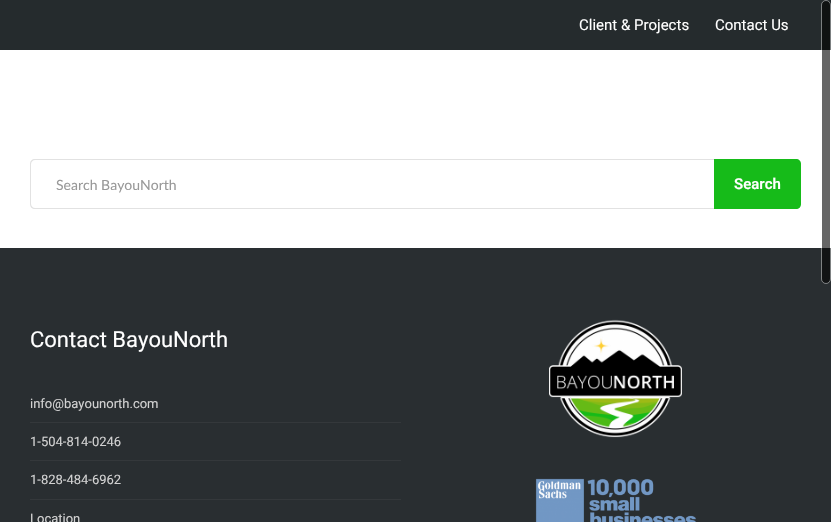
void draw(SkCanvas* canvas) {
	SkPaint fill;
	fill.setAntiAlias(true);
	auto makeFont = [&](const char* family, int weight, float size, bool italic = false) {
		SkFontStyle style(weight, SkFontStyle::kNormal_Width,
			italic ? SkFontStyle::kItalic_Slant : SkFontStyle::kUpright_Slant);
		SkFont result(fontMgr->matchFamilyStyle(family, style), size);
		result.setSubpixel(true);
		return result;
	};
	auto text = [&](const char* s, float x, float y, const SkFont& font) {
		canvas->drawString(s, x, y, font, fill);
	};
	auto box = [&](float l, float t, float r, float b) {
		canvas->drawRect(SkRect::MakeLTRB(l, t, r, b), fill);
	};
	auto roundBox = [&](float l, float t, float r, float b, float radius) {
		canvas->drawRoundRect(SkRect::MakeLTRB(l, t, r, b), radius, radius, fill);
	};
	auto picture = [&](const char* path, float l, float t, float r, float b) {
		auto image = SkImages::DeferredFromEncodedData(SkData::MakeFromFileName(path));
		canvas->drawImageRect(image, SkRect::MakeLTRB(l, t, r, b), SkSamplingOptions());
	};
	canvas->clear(0xFFFFFFFF);
	fill.setColor(0xFF252B2D);
	box(0, 0, 831, 50);
	fill.setColor(0xFF292E31);
	box(0, 248, 831, 522);
	fill.setColor(0x99000000);
	roundBox(822, 1, 830, 283, 4);
	fill.setStyle(SkPaint::kStroke_Style);
	fill.setStrokeWidth(1);
	fill.setColor(0x66FFFFFF);
	canvas->drawRoundRect(SkRect::MakeLTRB(821.5f, 0.5f, 830.5f, 283.5f), 4.5f, 4.5f, fill);
	fill.setStyle(SkPaint::kFill_Style);
	fill.setColor(0xFFE2E2E2);
	canvas->drawPath(SkPathBuilder(SkPathFillType::kEvenOdd).moveTo(35, 159).lineTo(714, 159).lineTo(714, 209).lineTo(35, 209).cubicTo(32, 209, 30, 207, 30, 204).lineTo(30, 164).cubicTo(30, 161, 32, 159, 35, 159).close().moveTo(35, 160).lineTo(714, 160).lineTo(714, 208).lineTo(35, 208).cubicTo(33, 208, 31, 206, 31, 204).lineTo(31, 164).cubicTo(31, 162, 33, 160, 35, 160).close().detach(), fill);
	fill.setColor(0xFF16BB19);
	canvas->drawPath(SkPathBuilder().moveTo(714, 159).lineTo(796, 159).cubicTo(799, 159, 801, 161, 801, 164).lineTo(801, 204).cubicTo(801, 207, 799, 209, 796, 209).lineTo(714, 209).close().detach(), fill);
	fill.setColor(0xFF34383B);
	box(30, 422, 401, 423);
	box(30, 460, 401, 461);
	box(30, 499, 401, 500);
	picture("image0.png", 549, 319, 682, 438);
	picture("image1.png", 535, 478, 696, 522);
	auto font1 = makeFont("Roboto", 400, 15);
	fill.setColor(0xFFFFFFFF);
	text("Client & Projects", 579, 30, font1);
	text("Contact Us", 715, 30, font1);
	auto font2 = makeFont("Lato", 400, 14);
	fill.setColor(0xFF999999);
	text("Search BayouNorth", 56, 190, font2);
	auto font3 = makeFont("Roboto", 600, 15);
	fill.setColor(0xFFFFFFFF);
	text("Search", 734, 189, font3);
	auto font4 = makeFont("Roboto", 400, 22);
	text("Contact BayouNorth", 30, 347, font4);
	auto font5 = makeFont("Roboto", 400, 13);
	fill.setColor(0xFFD2D2D2);
	text("info@bayounorth.com", 30, 408, font5);
	text("1-504-814-0246", 30, 446, font5);
	text("1-828-484-6962", 30, 484, font5);
	text("Location", 30, 523, font5);
}
